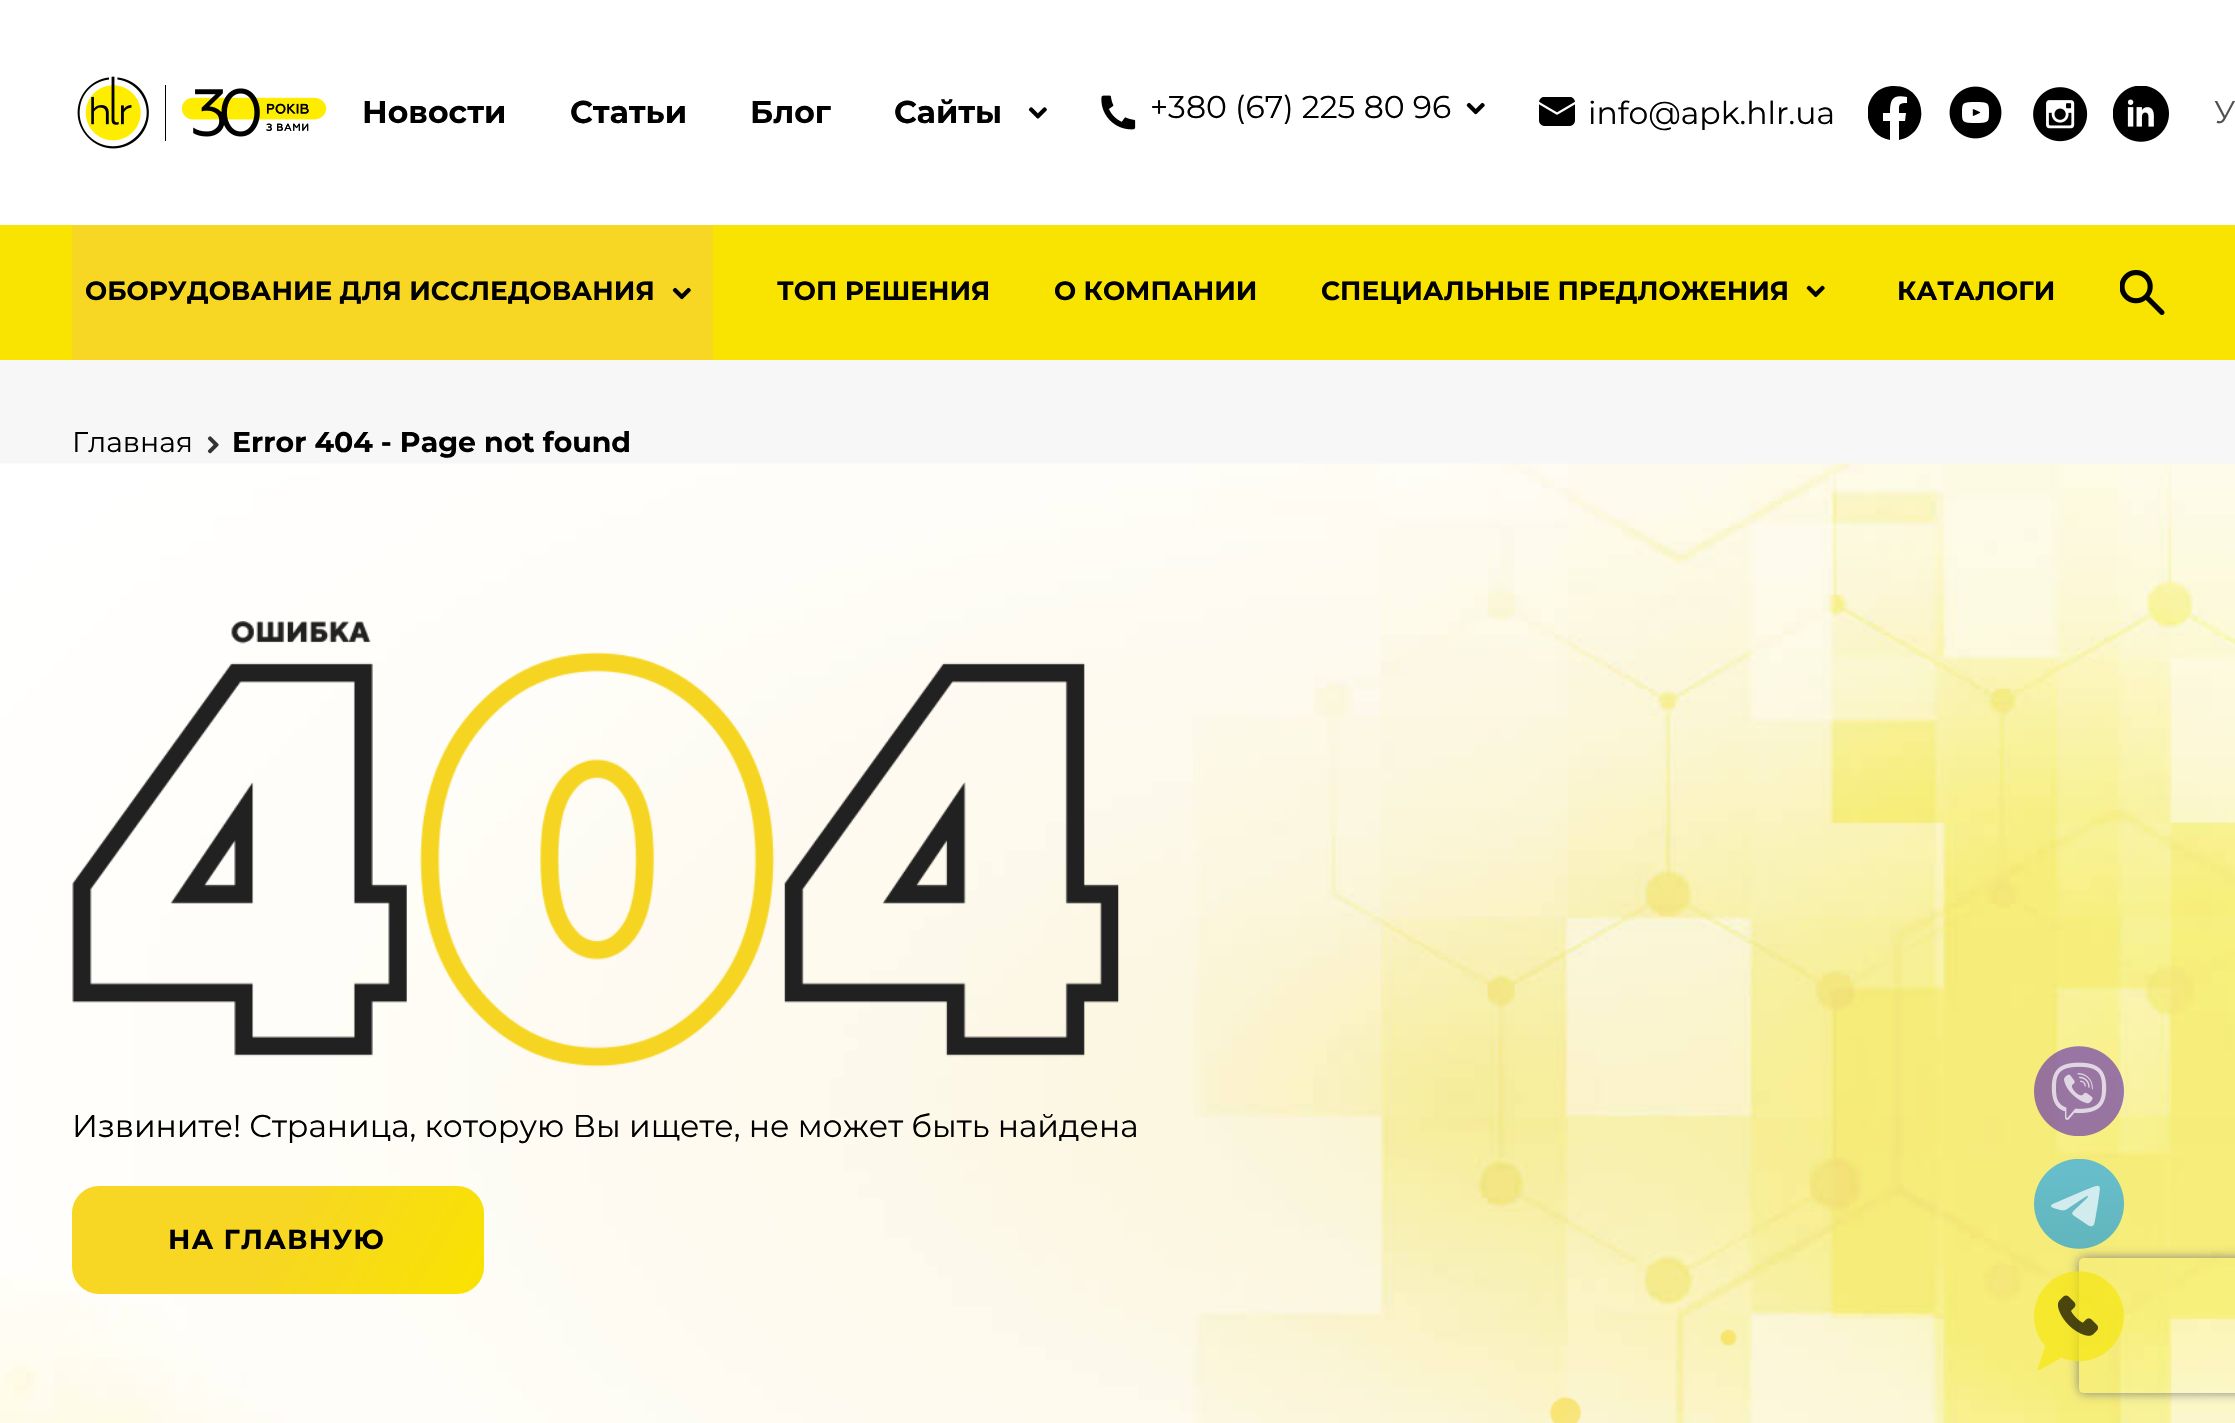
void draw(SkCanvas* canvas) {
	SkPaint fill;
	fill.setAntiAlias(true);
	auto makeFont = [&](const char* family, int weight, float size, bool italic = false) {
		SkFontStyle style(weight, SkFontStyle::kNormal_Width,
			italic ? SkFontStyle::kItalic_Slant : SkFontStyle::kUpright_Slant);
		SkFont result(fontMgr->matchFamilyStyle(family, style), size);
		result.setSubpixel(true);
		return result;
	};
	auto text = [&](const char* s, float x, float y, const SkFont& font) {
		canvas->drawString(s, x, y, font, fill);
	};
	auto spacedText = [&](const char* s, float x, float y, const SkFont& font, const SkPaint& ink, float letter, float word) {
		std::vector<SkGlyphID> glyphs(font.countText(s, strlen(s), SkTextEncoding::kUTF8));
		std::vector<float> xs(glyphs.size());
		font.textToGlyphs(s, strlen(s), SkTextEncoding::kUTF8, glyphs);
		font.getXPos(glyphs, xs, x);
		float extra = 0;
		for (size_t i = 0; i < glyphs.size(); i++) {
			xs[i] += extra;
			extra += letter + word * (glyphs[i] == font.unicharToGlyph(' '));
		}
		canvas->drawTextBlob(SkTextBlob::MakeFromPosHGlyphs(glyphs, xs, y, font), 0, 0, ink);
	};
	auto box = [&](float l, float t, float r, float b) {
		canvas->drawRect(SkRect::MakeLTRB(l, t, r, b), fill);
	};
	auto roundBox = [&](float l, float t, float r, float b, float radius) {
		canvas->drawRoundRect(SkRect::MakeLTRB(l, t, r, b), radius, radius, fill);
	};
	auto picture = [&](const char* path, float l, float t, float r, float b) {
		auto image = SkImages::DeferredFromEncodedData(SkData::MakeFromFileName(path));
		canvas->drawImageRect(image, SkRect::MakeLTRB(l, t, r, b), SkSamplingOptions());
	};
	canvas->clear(0xFFF7F7F7);
	fill.setColor(0xFFFFFFFF);
	box(0, 0, 2235, 225);
	picture("image0.png", 77, 76, 327, 149);
	picture("image1.png", 1028, 107, 1047, 119);
	picture("image2.png", 1101, 95, 1136, 130);
	picture("image3.png", 1466, 102, 1485, 115);
	picture("image4.png", 1539, 97, 1575, 126);
	canvas->save();
	canvas->clipRect(SkRect::MakeLTRB(1868, 86, 1922, 142));
	fill.setColor(0xFF000000);
	canvas->drawPath(SkPathBuilder().moveTo(1894, 86).cubicTo(1861, 86, 1858, 134, 1890, 140).lineTo(1890, 121).lineTo(1883, 121).lineTo(1883, 113).lineTo(1890, 113).cubicTo(1890, 100, 1892, 94, 1907, 97).lineTo(1907, 103).cubicTo(1898, 103, 1899, 105, 1899, 113).lineTo(1906, 113).lineTo(1905, 121).lineTo(1899, 121).lineTo(1899, 140).cubicTo(1931, 134, 1928, 86, 1894, 86).close().detach(), fill);
	canvas->restore();
	picture("image5.png", 1949, 86, 2002, 139);
	picture("image6.png", 2033, 87, 2088, 142);
	picture("image7.png", 2113, 86, 2169, 142);
	fill.setColor(0xFFF9E300);
	box(0, 225, 2235, 360);
	fill.setColor(0xFFF7D723);
	box(72, 225, 713, 360);
	picture("image8.png", 672, 287, 691, 300);
	picture("image9.png", 1806, 285, 1825, 298);
	picture("image10.png", 2120, 270, 2165, 315);
	picture("image11.png", 207, 436, 219, 454);
	picture("image12.png", 0, 463, 2235, 1423);
	picture("image13.png", 72, 621, 1119, 1067);
	{
		const SkColor colors[] = {0xFFF7D723, 0xFFF7D723, 0xFFF9E300};
		const float stops[] = {0, 0.5f, 1};
		const SkPoint ends[] = {{100, 1137}, {456, 1342}};
		fill.setShader(SkGradientShader::MakeLinear(ends, colors, stops, 3, SkTileMode::kClamp));
		fill.setAlpha(255);
	}
	roundBox(72, 1186, 484, 1294, 27);
	picture("image14.png", 1549, 1329, 1737, 1423);
	picture("image15.png", 2034, 1046, 2124, 1136);
	canvas->save();
	canvas->clipPath(SkPathBuilder(SkPathFillType::kEvenOdd).moveTo(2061, 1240).lineTo(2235, 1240).lineTo(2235, 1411).lineTo(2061, 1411).close().moveTo(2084, 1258).lineTo(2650, 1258).cubicTo(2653, 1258, 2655, 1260, 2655, 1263).lineTo(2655, 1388).cubicTo(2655, 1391, 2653, 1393, 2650, 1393).lineTo(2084, 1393).cubicTo(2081, 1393, 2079, 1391, 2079, 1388).lineTo(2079, 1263).cubicTo(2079, 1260, 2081, 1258, 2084, 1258).close().detach(), true);
	fill.setShader(nullptr);
	fill.setColor(0xFF808080);
	fill.setMaskFilter(SkMaskFilter::MakeBlur(kNormal_SkBlurStyle, 5.5f));
	canvas->drawRoundRect(SkRect::MakeLTRB(2079, 1258, 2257, 1393), 5, 5, fill);
	fill.setMaskFilter(nullptr);
	canvas->restore();
	picture("image16.png", 2034, 1159, 2124, 1249);
	picture("image17.png", 2034, 1271, 2124, 1370);
	auto font1 = makeFont("Montserrat", 700, 31.5f);
	fill.setColor(0xFF000000);
	text("Новости", 362, 123, font1);
	text("Статьи", 570, 123, font1);
	text("Блог", 750, 123, font1);
	text("Сайты", 894, 123, font1);
	auto font2 = makeFont("Montserrat", 400, 31.5f);
	text("+380 (67) 225 80 96", 1150, 118, font2);
	text("info@apk.hlr.ua", 1588, 124, font2);
	fill.setColor(0xFF505050);
	text("У", 2214, 123, font2);
	auto font3 = makeFont("Montserrat", 700, 26.3f);
	fill.setColor(0xFF000000);
	text("ОБОРУДОВАНИЕ ДЛЯ ИССЛЕДОВАНИЯ", 85, 300, font3);
	text("ТОП РЕШЕНИЯ", 777, 300, font3);
	text("О КОМПАНИИ", 1054, 300, font3);
	text("СПЕЦИАЛЬНЫЕ ПРЕДЛОЖЕНИЯ", 1321, 300, font3);
	text("КАТАЛОГИ", 1897, 300, font3);
	auto font4 = makeFont("Montserrat", 400, 28.4f);
	text("Главная", 72, 452, font4);
	auto font5 = makeFont("Montserrat", 700, 28.4f);
	text("Error 404 - Page not found", 232, 452, font5);
	text("Извините! Страница, которую Вы ищете, не может быть найдена", 72, 1137, font2);
	auto font6 = makeFont("Montserrat", 700, 27.5f);
	spacedText("НА ГЛАВНУЮ", 168, 1249, font6, fill, 1.1f, 0);
}
